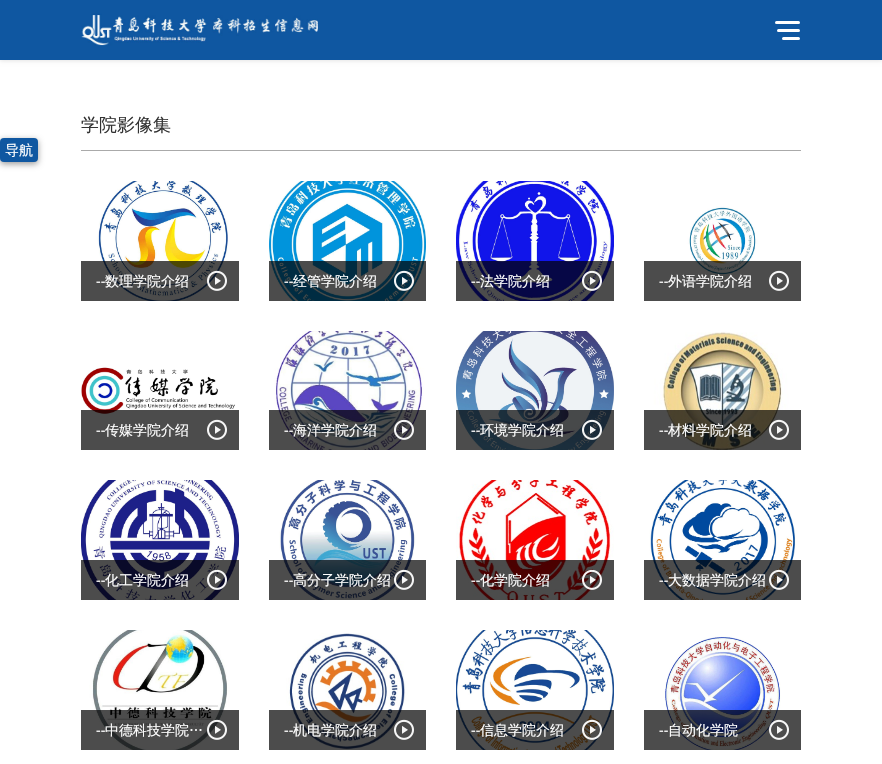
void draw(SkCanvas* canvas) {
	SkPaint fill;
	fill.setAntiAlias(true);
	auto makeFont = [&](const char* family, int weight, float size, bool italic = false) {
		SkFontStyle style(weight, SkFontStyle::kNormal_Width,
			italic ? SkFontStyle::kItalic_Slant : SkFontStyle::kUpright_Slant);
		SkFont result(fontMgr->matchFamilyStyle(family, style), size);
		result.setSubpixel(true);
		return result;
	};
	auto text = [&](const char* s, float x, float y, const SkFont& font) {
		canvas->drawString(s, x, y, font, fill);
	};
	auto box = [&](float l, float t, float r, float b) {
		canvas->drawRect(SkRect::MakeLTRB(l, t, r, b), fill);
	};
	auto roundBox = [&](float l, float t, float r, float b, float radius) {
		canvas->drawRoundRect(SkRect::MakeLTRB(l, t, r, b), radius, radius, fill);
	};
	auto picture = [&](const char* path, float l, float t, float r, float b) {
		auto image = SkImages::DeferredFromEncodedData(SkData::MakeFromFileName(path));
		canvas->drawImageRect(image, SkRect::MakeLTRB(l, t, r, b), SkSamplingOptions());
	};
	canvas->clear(0xFFFFFFFF);
	fill.setColor(0x1A000000);
	fill.setMaskFilter(SkMaskFilter::MakeBlur(kNormal_SkBlurStyle, 2));
	canvas->drawRect(SkRect::MakeLTRB(0, 1, 882, 61), fill);
	fill.setMaskFilter(nullptr);
	fill.setColor(0xFF0F57A1);
	box(0, 0, 882, 60);
	picture("image0.png", 81, 13, 318, 46);
	fill.setColor(0xFFFFFFFF);
	roundBox(777, 29, 800, 32, 1.5f);
	roundBox(775, 21, 800, 24, 1.5f);
	roundBox(782, 37, 800, 40, 1.5f);
	fill.setColor(0x66000000);
	fill.setMaskFilter(SkMaskFilter::MakeBlur(kNormal_SkBlurStyle, 3));
	canvas->drawRoundRect(SkRect::MakeLTRB(0, 140, 38, 164), 4, 4, fill);
	fill.setMaskFilter(nullptr);
	fill.setColor(0xFF0F57A1);
	roundBox(0, 138, 38, 162, 4);
	fill.setColor(0xFFAAAAAA);
	box(81, 150, 801, 151);
	picture("image1.png", 81, 181, 239, 301);
	fill.setColor(0xB3000000);
	box(81, 261, 239, 301);
	picture("image2.png", 207, 270, 227, 291);
	picture("image3.png", 269, 181, 426, 301);
	box(269, 261, 426, 301);
	picture("image4.png", 394, 270, 414, 291);
	picture("image5.png", 456, 181, 614, 301);
	box(456, 261, 614, 301);
	picture("image6.png", 582, 270, 602, 291);
	picture("image7.png", 644, 181, 801, 301);
	box(644, 261, 801, 301);
	picture("image8.png", 769, 270, 789, 291);
	picture("image9.png", 81, 331, 239, 450);
	box(81, 410, 239, 450);
	picture("image8.png", 207, 419, 227, 440);
	picture("image10.png", 269, 331, 426, 450);
	box(269, 410, 426, 450);
	picture("image11.png", 394, 419, 414, 440);
	picture("image12.png", 456, 331, 614, 450);
	box(456, 410, 614, 450);
	picture("image13.png", 582, 419, 602, 440);
	picture("image14.png", 644, 331, 801, 450);
	box(644, 410, 801, 450);
	picture("image15.png", 769, 419, 789, 440);
	picture("image16.png", 81, 480, 239, 600);
	box(81, 560, 239, 600);
	picture("image17.png", 207, 569, 227, 590);
	picture("image18.png", 269, 480, 426, 600);
	box(269, 560, 426, 600);
	picture("image19.png", 394, 569, 414, 590);
	picture("image20.png", 456, 480, 614, 600);
	box(456, 560, 614, 600);
	picture("image21.png", 582, 569, 602, 590);
	picture("image22.png", 644, 480, 801, 600);
	box(644, 560, 801, 600);
	picture("image23.png", 769, 569, 789, 590);
	picture("image24.png", 81, 630, 239, 750);
	box(81, 710, 239, 750);
	picture("image25.png", 207, 719, 227, 740);
	picture("image26.png", 269, 630, 426, 750);
	box(269, 710, 426, 750);
	picture("image27.png", 394, 719, 414, 740);
	picture("image28.png", 456, 630, 614, 750);
	box(456, 710, 614, 750);
	picture("image29.png", 582, 719, 602, 740);
	picture("image30.png", 644, 630, 801, 750);
	box(644, 710, 801, 750);
	picture("image31.png", 769, 719, 789, 740);
	auto font1 = makeFont("WenQuanYi Zen Hei", 500, 14);
	fill.setColor(0xFFFFFFFF);
	text("导航", 5, 155, font1);
	auto font2 = makeFont("WenQuanYi Zen Hei", 500, 18);
	fill.setColor(0xFF333333);
	text("学院影像集", 81, 131, font2);
	auto font3 = makeFont("Liberation Sans", 400, 14);
	fill.setColor(0xFFFFFFFF);
	text("--", 96, 286, font3);
	text("数理学院介绍", 105, 286, font1);
	text("--", 284, 286, font3);
	text("经管学院介绍", 293, 286, font1);
	text("--", 471, 286, font3);
	text("法学院介绍", 480, 286, font1);
	text("--", 659, 286, font3);
	text("外语学院介绍", 668, 286, font1);
	text("--", 96, 435, font3);
	text("传媒学院介绍", 105, 435, font1);
	text("--", 284, 435, font3);
	text("海洋学院介绍", 293, 435, font1);
	text("--", 471, 435, font3);
	text("环境学院介绍", 480, 435, font1);
	text("--", 659, 435, font3);
	text("材料学院介绍", 668, 435, font1);
	text("--", 96, 585, font3);
	text("化工学院介绍", 105, 585, font1);
	text("--", 284, 585, font3);
	text("高分子学院介绍", 293, 585, font1);
	text("--", 471, 585, font3);
	text("化学院介绍", 480, 585, font1);
	text("--", 659, 585, font3);
	text("大数据学院介绍", 668, 585, font1);
	text("--", 96, 735, font3);
	text("中德科技学院…", 105, 735, font1);
	text("--", 284, 735, font3);
	text("机电学院介绍", 293, 735, font1);
	text("--", 471, 735, font3);
	text("信息学院介绍", 480, 735, font1);
	text("--", 659, 735, font3);
	text("自动化学院", 668, 735, font1);
}
